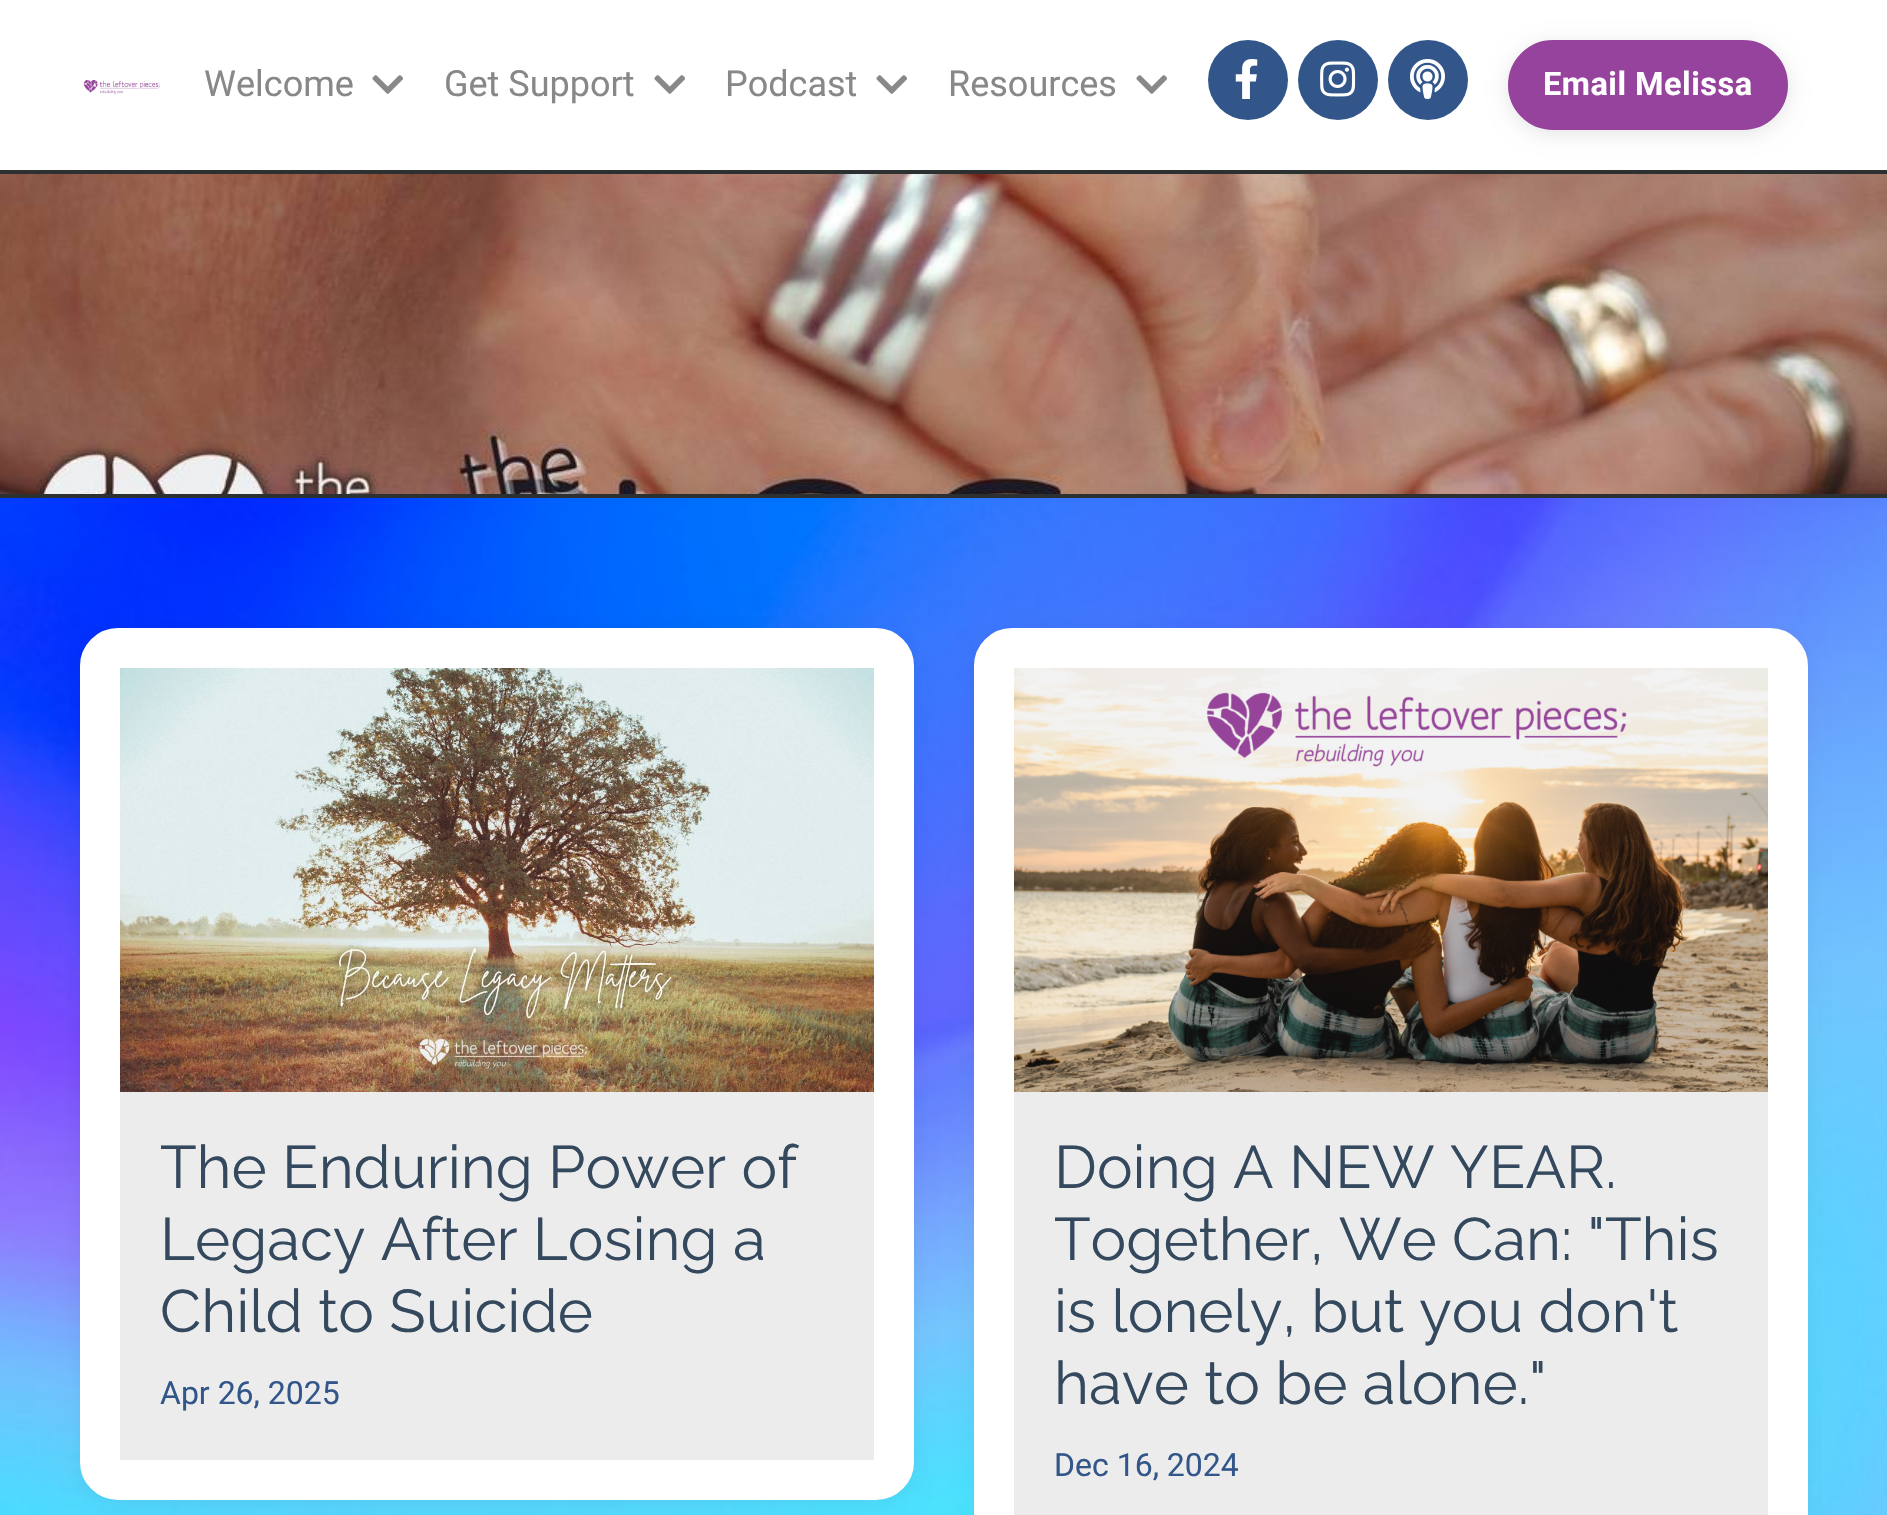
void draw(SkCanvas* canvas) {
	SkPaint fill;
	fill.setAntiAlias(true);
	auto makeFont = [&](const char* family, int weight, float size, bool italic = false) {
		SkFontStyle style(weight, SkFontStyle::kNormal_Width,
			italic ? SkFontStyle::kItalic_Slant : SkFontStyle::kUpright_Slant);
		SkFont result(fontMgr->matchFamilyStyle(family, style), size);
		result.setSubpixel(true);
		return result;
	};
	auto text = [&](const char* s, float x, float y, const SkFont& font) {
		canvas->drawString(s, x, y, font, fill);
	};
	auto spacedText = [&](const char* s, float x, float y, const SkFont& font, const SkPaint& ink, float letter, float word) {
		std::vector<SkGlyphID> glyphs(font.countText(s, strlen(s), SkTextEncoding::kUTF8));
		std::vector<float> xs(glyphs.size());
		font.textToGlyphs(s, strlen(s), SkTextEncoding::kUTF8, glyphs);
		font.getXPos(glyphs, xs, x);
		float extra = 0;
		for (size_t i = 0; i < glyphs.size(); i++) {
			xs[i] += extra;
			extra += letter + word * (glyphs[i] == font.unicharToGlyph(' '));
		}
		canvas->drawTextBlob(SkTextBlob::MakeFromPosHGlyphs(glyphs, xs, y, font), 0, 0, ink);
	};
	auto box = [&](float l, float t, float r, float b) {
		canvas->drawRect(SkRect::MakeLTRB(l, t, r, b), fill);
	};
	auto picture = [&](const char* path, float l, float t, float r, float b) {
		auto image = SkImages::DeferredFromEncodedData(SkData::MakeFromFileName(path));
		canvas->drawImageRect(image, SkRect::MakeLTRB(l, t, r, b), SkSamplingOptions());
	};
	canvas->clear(0xFFFFFFFF);
	picture("image0.png", 83, 79, 160, 95);
	picture("image1.png", 372, 75, 403, 94);
	picture("image1.png", 654, 75, 685, 94);
	picture("image1.png", 876, 75, 907, 94);
	picture("image1.png", 1136, 75, 1167, 94);
	fill.setColor(0xFF32568A);
	canvas->drawCircle(1248, 80, 40, fill);
	picture("image2.png", 1235, 59, 1258, 99);
	canvas->drawCircle(1338, 80, 40, fill);
	picture("image3.png", 1320, 61, 1356, 97);
	canvas->drawCircle(1428, 80, 40, fill);
	picture("image4.png", 1410, 59, 1445, 99);
	fill.setColor(0x1A000000);
	fill.setMaskFilter(SkMaskFilter::MakeBlur(kNormal_SkBlurStyle, 10));
	canvas->drawRoundRect(SkRect::MakeLTRB(1508, 44, 1788, 134), 45, 45, fill);
	fill.setMaskFilter(nullptr);
	fill.setColor(0xFF96439D);
	canvas->drawRoundRect(SkRect::MakeLTRB(1510, 42, 1786, 128), 43, 43, fill);
	fill.setStyle(SkPaint::kStroke_Style);
	fill.setStrokeWidth(4);
	canvas->drawRoundRect(SkRect::MakeLTRB(1510, 42, 1786, 128), 43, 43, fill);
	fill.setStyle(SkPaint::kFill_Style);
	fill.setColor(0xFF2D3031);
	box(0, 170, 1887, 174);
	picture("image5.png", 0, 174, 1887, 494);
	box(0, 494, 1887, 498);
	picture("image6.png", 0, 498, 1887, 1515);
	fill.setColor(0x0D000000);
	fill.setMaskFilter(SkMaskFilter::MakeBlur(kNormal_SkBlurStyle, 10));
	canvas->drawRoundRect(SkRect::MakeLTRB(80, 632, 914, 1504), 38, 38, fill);
	fill.setMaskFilter(nullptr);
	fill.setColor(0xFFECECEC);
	canvas->drawRoundRect(SkRect::MakeLTRB(100, 648, 894, 1480), 18, 18, fill);
	fill.setStyle(SkPaint::kStroke_Style);
	fill.setStrokeWidth(40);
	fill.setColor(0xFFFFFFFF);
	canvas->drawRoundRect(SkRect::MakeLTRB(100, 648, 894, 1480), 18, 18, fill);
	picture("image7.png", 120, 668, 874, 1092);
	fill.setStyle(SkPaint::kFill_Style);
	fill.setColor(0x0D000000);
	fill.setMaskFilter(SkMaskFilter::MakeBlur(kNormal_SkBlurStyle, 10));
	canvas->drawRoundRect(SkRect::MakeLTRB(974, 632, 1808, 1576), 38, 38, fill);
	fill.setMaskFilter(nullptr);
	fill.setColor(0xFFECECEC);
	canvas->drawRoundRect(SkRect::MakeLTRB(994, 648, 1788, 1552), 18, 18, fill);
	fill.setStyle(SkPaint::kStroke_Style);
	fill.setColor(0xFFFFFFFF);
	canvas->drawRoundRect(SkRect::MakeLTRB(994, 648, 1788, 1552), 18, 18, fill);
	picture("image8.png", 1014, 668, 1768, 1092);
	auto font1 = makeFont("Roboto", 400, 36);
	fill.setStyle(SkPaint::kFill_Style);
	fill.setColor(0xFF888888);
	text("Welcome", 204, 96, font1);
	text("Get Support", 444, 96, font1);
	text("Podcast", 725, 96, font1);
	text("Resources", 948, 96, font1);
	auto font2 = makeFont("Roboto", 700, 32.5f);
	fill.setColor(0xFFFFFFFF);
	spacedText("Email Melissa", 1543, 95, font2, fill, 0.5f, 0);
	auto font3 = makeFont("Raleway", 400, 60);
	fill.setColor(0xFF34495E);
	text("The Enduring Power of", 160, 1188, font3);
	text("Legacy After Losing a", 160, 1260, font3);
	text("Child to Suicide", 160, 1332, font3);
	auto font4 = makeFont("Roboto", 400, 32);
	fill.setColor(0xFF32568A);
	text("Apr 26, 2025", 160, 1404, font4);
	fill.setColor(0xFF34495E);
	text("Doing A NEW YEAR.", 1054, 1188, font3);
	text("Together, We Can: \"This", 1054, 1260, font3);
	text("is lonely, but you don't", 1054, 1332, font3);
	text("have to be alone.\"", 1054, 1404, font3);
	fill.setColor(0xFF32568A);
	text("Dec 16, 2024", 1054, 1476, font4);
}
